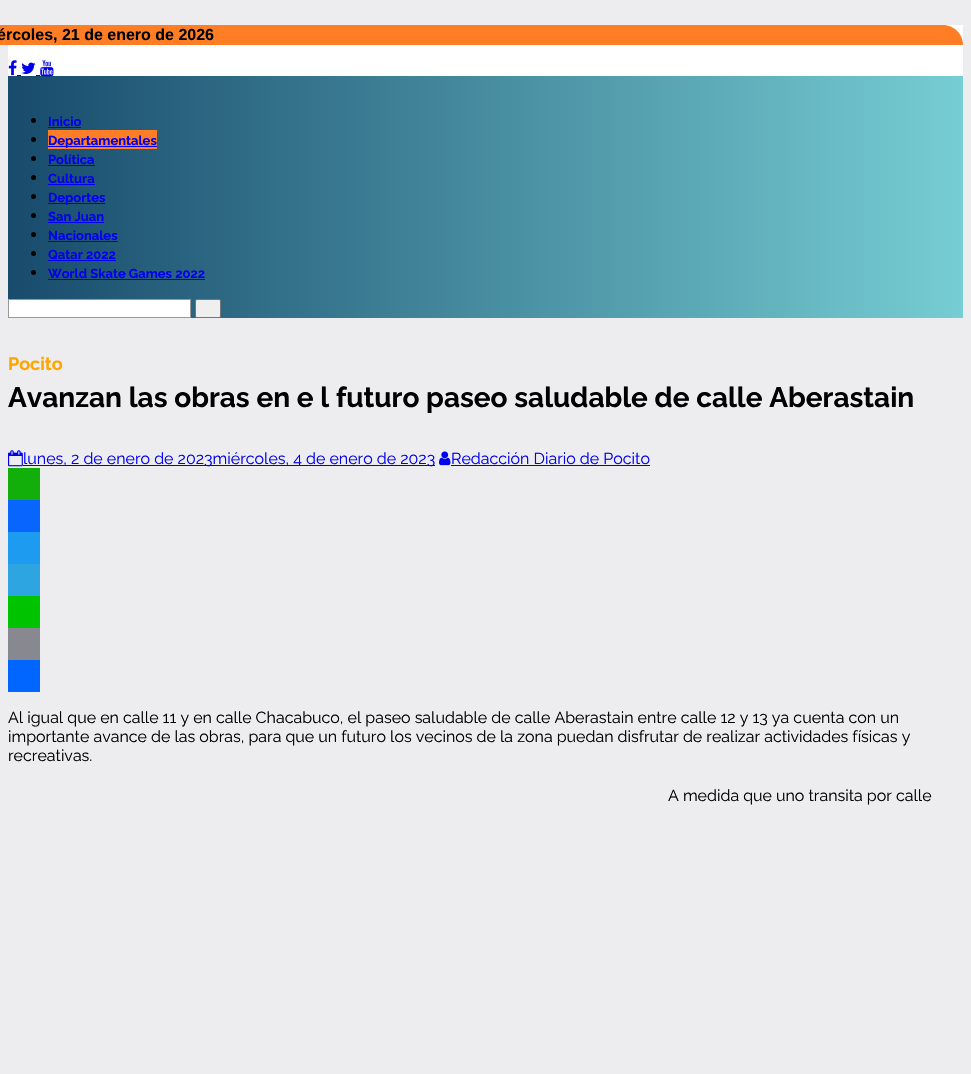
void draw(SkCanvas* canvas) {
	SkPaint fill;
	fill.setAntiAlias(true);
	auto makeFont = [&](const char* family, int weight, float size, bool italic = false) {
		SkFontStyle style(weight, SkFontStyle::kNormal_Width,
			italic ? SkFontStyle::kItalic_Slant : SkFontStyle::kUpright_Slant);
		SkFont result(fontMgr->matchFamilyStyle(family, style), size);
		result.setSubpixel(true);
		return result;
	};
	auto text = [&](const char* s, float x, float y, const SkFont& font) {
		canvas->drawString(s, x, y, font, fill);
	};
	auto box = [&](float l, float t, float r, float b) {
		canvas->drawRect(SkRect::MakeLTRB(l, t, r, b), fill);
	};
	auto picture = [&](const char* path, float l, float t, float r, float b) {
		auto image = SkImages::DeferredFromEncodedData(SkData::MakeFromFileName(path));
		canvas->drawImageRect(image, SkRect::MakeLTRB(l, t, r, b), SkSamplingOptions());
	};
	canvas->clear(0xFFEDEDF0);
	fill.setColor(0xFFFFFFFF);
	box(8, 25, 963, 76);
	fill.setColor(0xFFFF7D24);
	canvas->drawPath(SkPathBuilder().moveTo(-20, 25).lineTo(943, 25).cubicTo(954, 25, 963, 34, 963, 45).lineTo(-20, 45).close().detach(), fill);
	picture("image0.png", 8, 60, 17, 76);
	fill.setColor(0xFF0000EE);
	box(17, 75, 21, 76);
	picture("image1.png", 21, 62, 36, 74);
	box(36, 75, 40, 76);
	{
		const SkColor colors[] = {0xFF184B6C, 0xFF76CDD3};
		const float stops[] = {0, 1};
		const SkPoint ends[] = {{8, 197}, {963, 197}};
		fill.setShader(SkGradientShader::MakeLinear(ends, colors, stops, 2, SkTileMode::kClamp));
		fill.setAlpha(255);
	}
	box(8, 76, 963, 318);
	picture("image2.png", 40, 60, 54, 77);
	fill.setShader(nullptr);
	fill.setColor(0xFF000000);
	canvas->drawCircle(33.5f, 120.5f, 2.5f, fill);
	fill.setColor(0xFF0000EE);
	box(48, 127, 81, 128);
	fill.setColor(0xFF000000);
	canvas->drawCircle(33.5f, 139.5f, 2.5f, fill);
	fill.setColor(0xFFFF7D24);
	box(48, 130, 157, 149);
	fill.setColor(0xFF0000EE);
	box(48, 146, 157, 147);
	fill.setColor(0xFF000000);
	canvas->drawCircle(33.5f, 158.5f, 2.5f, fill);
	fill.setColor(0xFF0000EE);
	box(48, 165, 95, 166);
	fill.setColor(0xFF000000);
	canvas->drawCircle(33.5f, 177.5f, 2.5f, fill);
	fill.setColor(0xFF0000EE);
	box(48, 184, 95, 185);
	fill.setColor(0xFF000000);
	canvas->drawCircle(33.5f, 196.5f, 2.5f, fill);
	fill.setColor(0xFF0000EE);
	box(48, 203, 105, 204);
	fill.setColor(0xFF000000);
	canvas->drawCircle(33.5f, 215.5f, 2.5f, fill);
	fill.setColor(0xFF0000EE);
	box(48, 222, 104, 223);
	fill.setColor(0xFF000000);
	canvas->drawCircle(33.5f, 234.5f, 2.5f, fill);
	fill.setColor(0xFF0000EE);
	box(48, 241, 118, 242);
	fill.setColor(0xFF000000);
	canvas->drawCircle(33.5f, 253.5f, 2.5f, fill);
	fill.setColor(0xFF0000EE);
	box(48, 260, 116, 261);
	fill.setColor(0xFF000000);
	canvas->drawCircle(33.5f, 272.5f, 2.5f, fill);
	fill.setColor(0xFF0000EE);
	box(48, 279, 205, 280);
	fill.setColor(0xFFFFFFFF);
	canvas->drawRect(SkRect::MakeLTRB(8.5f, 299.5f, 190.5f, 317.5f), fill);
	fill.setStyle(SkPaint::kStroke_Style);
	fill.setStrokeWidth(1);
	fill.setColor(0xFF999999);
	canvas->drawRect(SkRect::MakeLTRB(8.5f, 299.5f, 190.5f, 317.5f), fill);
	fill.setStyle(SkPaint::kFill_Style);
	fill.setColor(0xFFEFEFEF);
	canvas->drawRoundRect(SkRect::MakeLTRB(195.5f, 299.5f, 220.5f, 317.5f), 1.5f, 1.5f, fill);
	fill.setStyle(SkPaint::kStroke_Style);
	fill.setColor(0xFF767676);
	canvas->drawRoundRect(SkRect::MakeLTRB(195.5f, 299.5f, 220.5f, 317.5f), 1.5f, 1.5f, fill);
	picture("image3.png", 8, 450, 23, 467);
	fill.setStyle(SkPaint::kFill_Style);
	fill.setColor(0xFF0000EE);
	box(23, 465, 435, 466);
	picture("image4.png", 439, 451, 451, 466);
	box(451, 465, 650, 466);
	fill.setColor(0xFF12AF0A);
	box(8, 468, 40, 500);
	fill.setColor(0xFF0866FF);
	box(8, 500, 40, 532);
	fill.setColor(0xFF1D9BF0);
	box(8, 532, 40, 564);
	fill.setColor(0xFF2CA5E0);
	box(8, 564, 40, 596);
	fill.setColor(0xFF00C300);
	box(8, 596, 40, 628);
	fill.setColor(0xFF888990);
	box(8, 628, 40, 660);
	fill.setColor(0xFF0166FF);
	box(8, 660, 40, 692);
	auto font1 = makeFont("Liberation Sans", 700, 16);
	fill.setColor(0xFF000000);
	text("ércoles, 21 de enero de 2026", -3, 40, font1);
	auto font2 = makeFont("Raleway", 700, 13);
	fill.setColor(0xFF0000EE);
	text("Inicio", 48, 126, font2);
	text("Departamentales", 48, 145, font2);
	text("Política", 48, 164, font2);
	text("Cultura", 48, 183, font2);
	text("Deportes", 48, 202, font2);
	text("San Juan", 48, 221, font2);
	text("Nacionales", 48, 240, font2);
	text("Qatar 2022", 48, 259, font2);
	text("World Skate Games 2022", 48, 278, font2);
	auto font3 = makeFont("Raleway", 700, 18);
	fill.setColor(0xFFFFA500);
	text("Pocito", 8, 370, font3);
	auto font4 = makeFont("Raleway", 700, 28);
	fill.setColor(0xFF000000);
	text("Avanzan las obras en e l futuro paseo saludable de calle Aberastain", 8, 407, font4);
	auto font5 = makeFont("Raleway", 400, 16);
	fill.setColor(0xFF0000EE);
	text("lunes, 2 de enero de 2023miércoles, 4 de enero de 2023", 23, 464, font5);
	text("Redacción Diario de Pocito", 451, 464, font5);
	fill.setColor(0xFF000000);
	text("Al igual que en calle 11 y en calle Chacabuco, el paseo saludable de calle Aberastain entre calle 12 y 13 ya cuenta con un", 8, 723, font5);
	text("importante avance de las obras, para que un futuro los vecinos de la zona puedan disfrutar de realizar actividades físicas y", 8, 742, font5);
	text("recreativas.", 8, 761, font5);
	text("A medida que uno transita por calle", 668, 801, font5);
}
